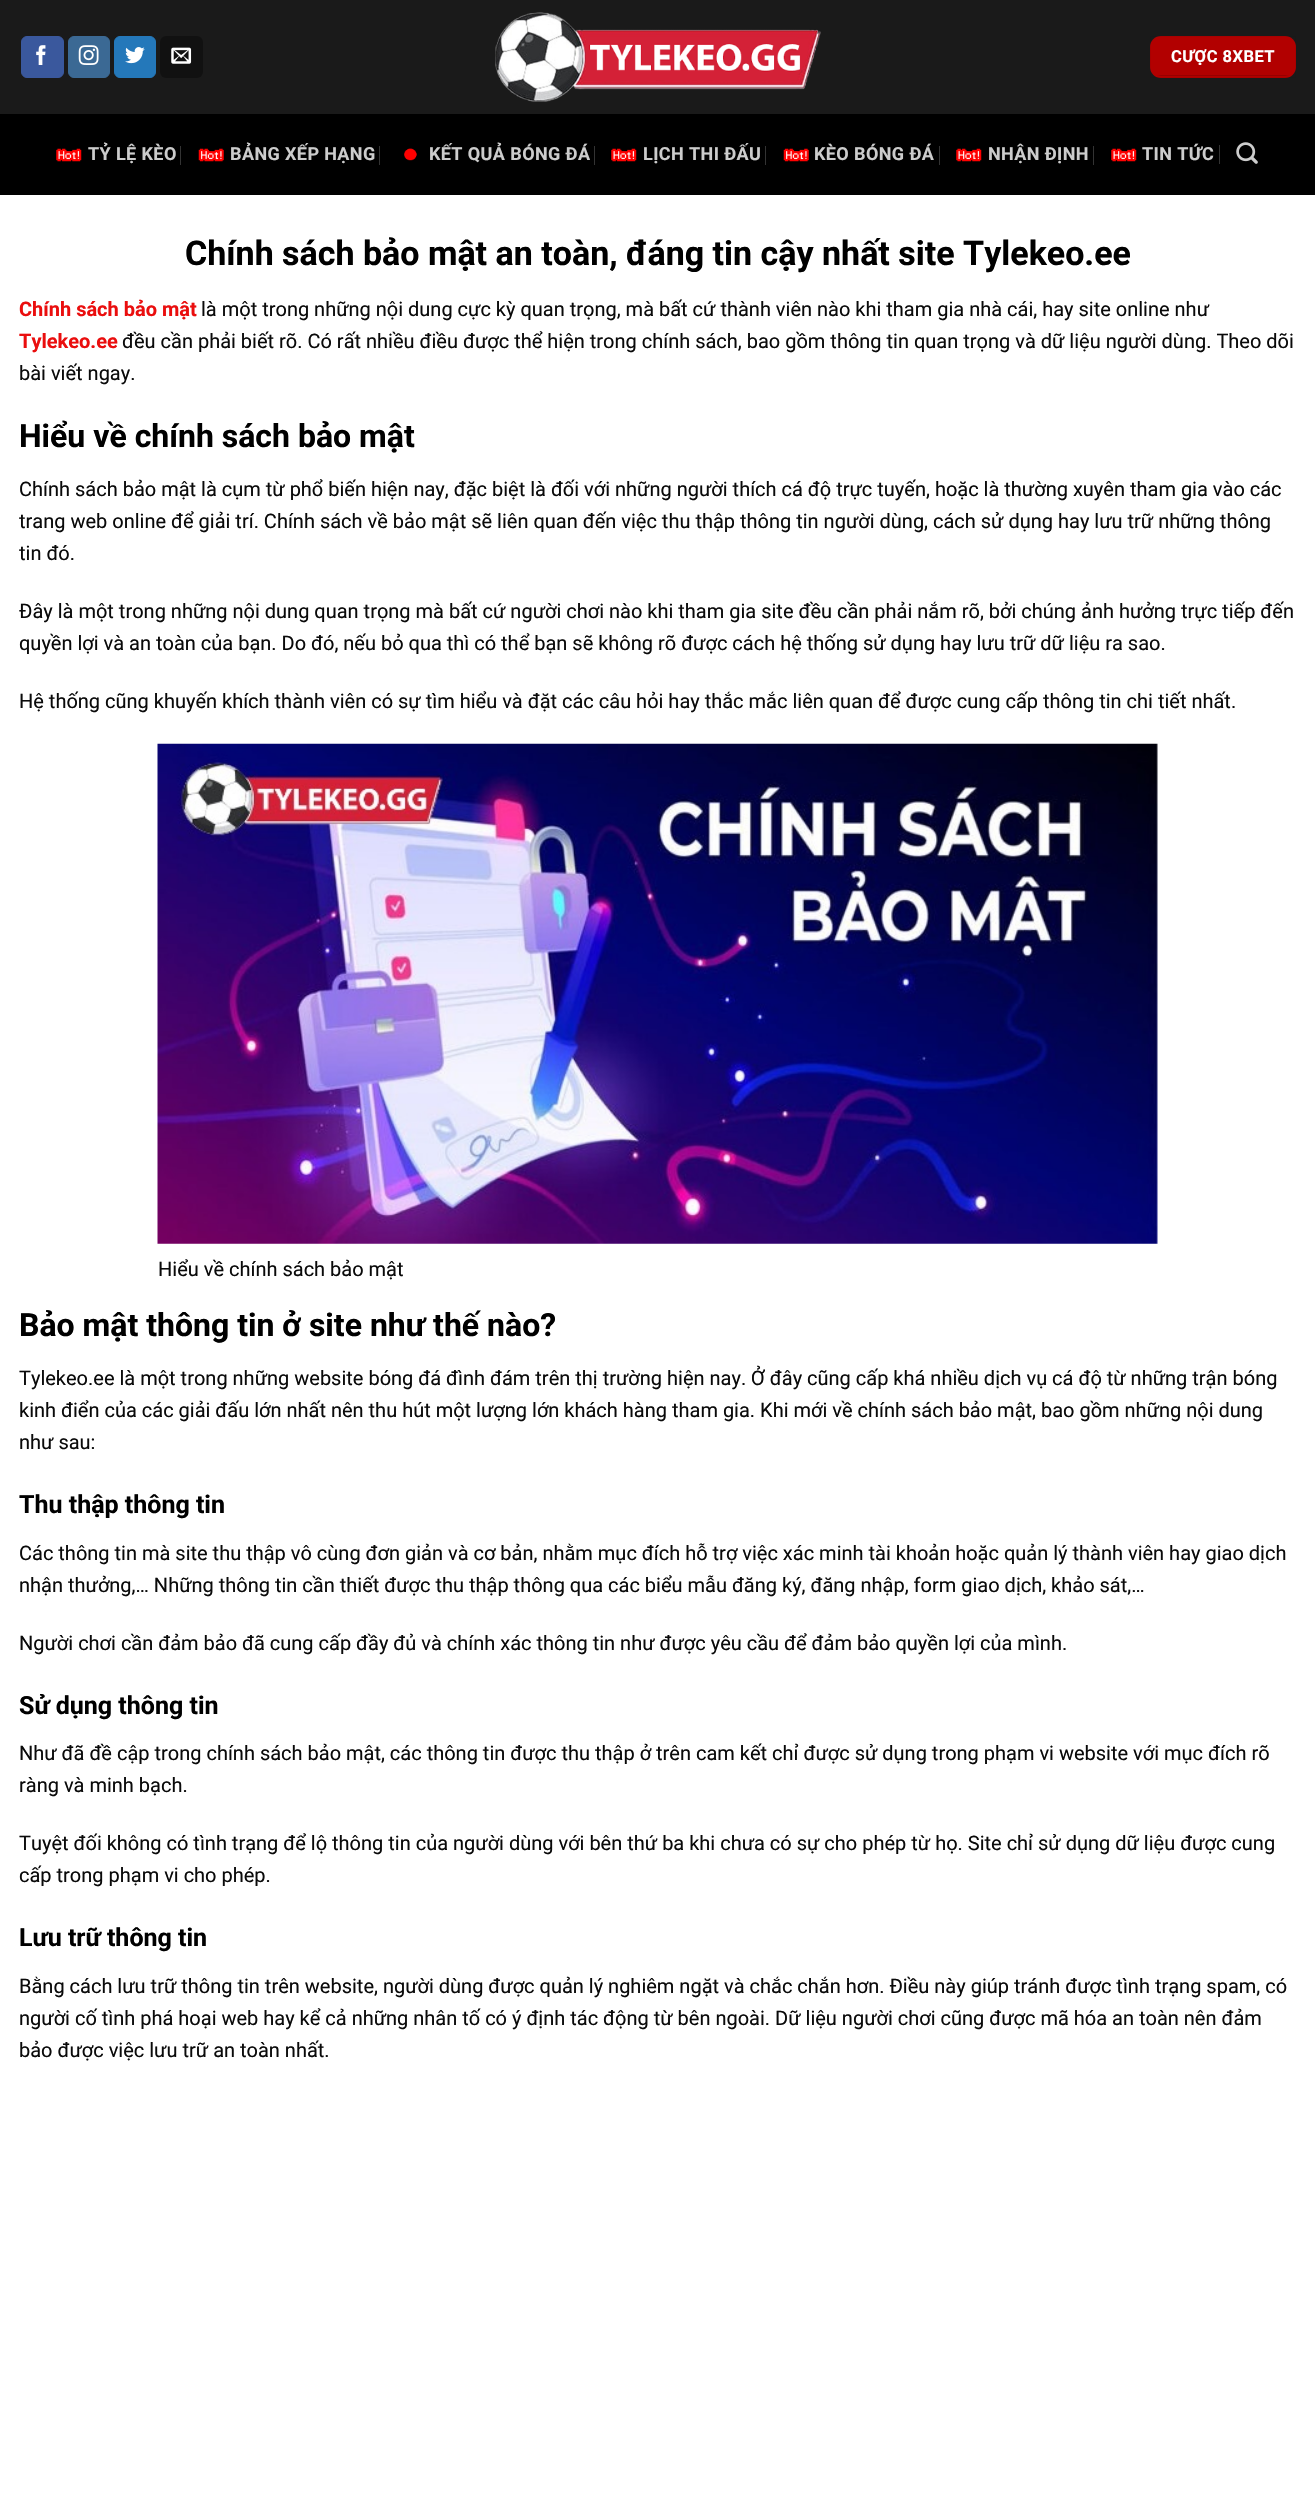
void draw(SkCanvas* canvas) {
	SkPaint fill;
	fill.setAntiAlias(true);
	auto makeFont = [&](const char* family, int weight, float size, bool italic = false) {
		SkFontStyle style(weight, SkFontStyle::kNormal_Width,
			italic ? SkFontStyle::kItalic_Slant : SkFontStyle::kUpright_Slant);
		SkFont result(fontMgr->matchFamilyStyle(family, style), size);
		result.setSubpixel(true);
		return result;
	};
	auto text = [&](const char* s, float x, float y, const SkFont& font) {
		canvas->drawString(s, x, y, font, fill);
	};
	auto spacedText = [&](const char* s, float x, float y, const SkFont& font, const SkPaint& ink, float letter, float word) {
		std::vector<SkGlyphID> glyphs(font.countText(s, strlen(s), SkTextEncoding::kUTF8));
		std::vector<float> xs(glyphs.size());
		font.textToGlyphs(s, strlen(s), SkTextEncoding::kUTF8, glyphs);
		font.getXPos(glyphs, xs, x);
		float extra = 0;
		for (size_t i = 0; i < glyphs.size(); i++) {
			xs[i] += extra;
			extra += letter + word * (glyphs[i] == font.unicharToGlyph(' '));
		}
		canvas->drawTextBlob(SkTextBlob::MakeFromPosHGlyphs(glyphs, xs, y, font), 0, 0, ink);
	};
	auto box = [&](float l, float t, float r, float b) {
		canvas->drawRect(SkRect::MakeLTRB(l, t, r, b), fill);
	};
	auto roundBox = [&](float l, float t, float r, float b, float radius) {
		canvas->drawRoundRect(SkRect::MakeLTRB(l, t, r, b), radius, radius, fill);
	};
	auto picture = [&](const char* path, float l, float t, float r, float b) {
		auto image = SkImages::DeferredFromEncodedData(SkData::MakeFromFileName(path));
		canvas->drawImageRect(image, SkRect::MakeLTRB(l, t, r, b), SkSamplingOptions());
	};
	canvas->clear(0xFFFFFFFF);
	fill.setColor(0xFF1A1A1A);
	box(0, 0, 1315, 114);
	fill.setColor(0xFF3A589D);
	canvas->drawRoundRect(SkRect::MakeLTRB(21.5f, 36.5f, 63.5f, 77.5f), 5.5f, 5.5f, fill);
	fill.setStyle(SkPaint::kStroke_Style);
	fill.setStrokeWidth(1);
	canvas->drawRoundRect(SkRect::MakeLTRB(21.5f, 36.5f, 63.5f, 77.5f), 5.5f, 5.5f, fill);
	picture("image0.png", 36, 45, 46, 65);
	fill.setStyle(SkPaint::kFill_Style);
	fill.setColor(0xFF3B6994);
	canvas->drawRoundRect(SkRect::MakeLTRB(68.5f, 36.5f, 109.5f, 77.5f), 5.5f, 5.5f, fill);
	fill.setStyle(SkPaint::kStroke_Style);
	canvas->drawRoundRect(SkRect::MakeLTRB(68.5f, 36.5f, 109.5f, 77.5f), 5.5f, 5.5f, fill);
	picture("image1.png", 78, 45, 99, 65);
	fill.setStyle(SkPaint::kFill_Style);
	fill.setColor(0xFF2478BA);
	canvas->drawRoundRect(SkRect::MakeLTRB(114.5f, 36.5f, 155.5f, 77.5f), 5.5f, 5.5f, fill);
	fill.setStyle(SkPaint::kStroke_Style);
	canvas->drawRoundRect(SkRect::MakeLTRB(114.5f, 36.5f, 155.5f, 77.5f), 5.5f, 5.5f, fill);
	picture("image2.png", 125, 47, 145, 64);
	fill.setStyle(SkPaint::kFill_Style);
	fill.setColor(0xFF111111);
	roundBox(160, 36, 203, 78, 6);
	picture("image3.png", 171, 47, 192, 64);
	picture("image4.png", 495, 12, 821, 102);
	fill.setColor(0xFFB20000);
	roundBox(1150, 36, 1296, 78, 11);
	fill.setStyle(SkPaint::kStroke_Style);
	fill.setColor(0x0D000000);
	canvas->drawRect(SkRect::MakeLTRB(1150.5f, 36.5f, 1295.5f, 77.5f), fill);
	fill.setStyle(SkPaint::kFill_Style);
	fill.setColor(0xFF970000);
	canvas->drawPath(SkPathBuilder().moveTo(1157, 75).lineTo(1161, 76).lineTo(1285, 76).lineTo(1289, 75).close().detach(), fill);
	fill.setColor(0xFF000000);
	box(0, 114, 1315, 195);
	picture("image5.png", 56, 148, 82, 162);
	fill.setColor(0xFF333333);
	box(180, 146, 181, 165);
	picture("image6.png", 198, 148, 224, 162);
	box(379, 146, 380, 165);
	picture("image7.png", 404, 148, 417, 161);
	box(594, 146, 595, 165);
	picture("image5.png", 611, 148, 637, 162);
	box(765, 146, 766, 165);
	picture("image8.png", 783, 148, 809, 162);
	box(939, 146, 940, 165);
	picture("image5.png", 956, 148, 982, 162);
	box(1093, 146, 1094, 165);
	picture("image5.png", 1111, 148, 1137, 162);
	box(1219, 145, 1220, 164);
	picture("image9.png", 1236, 142, 1258, 164);
	picture("image10.png", 157, 743, 1158, 1244);
	auto font1 = makeFont("Roboto", 700, 16.5f);
	fill.setColor(0xFFFFFFFF);
	spacedText("CƯỢC 8XBET", 1171, 62, font1, fill, 0.5f, 0);
	auto font2 = makeFont("Roboto", 700, 18);
	fill.setColor(0xFFCCCCCC);
	spacedText("TỶ LỆ KÈO", 88, 160, font2, fill, 0.4f, 0);
	spacedText("BẢNG XẾP HẠNG", 230, 160, font2, fill, 0.4f, 0);
	spacedText("KẾT QUẢ BÓNG ĐÁ", 429, 160, font2, fill, 0.4f, 0);
	spacedText("LỊCH THI ĐẤU", 643, 160, font2, fill, 0.4f, 0);
	spacedText("KÈO BÓNG ĐÁ", 814, 160, font2, fill, 0.4f, 0);
	spacedText("NHẬN ĐỊNH", 988, 160, font2, fill, 0.4f, 0);
	spacedText("TIN TỨC", 1142, 160, font2, fill, 0.4f, 0);
	auto font3 = makeFont("Roboto", 700, 34);
	fill.setColor(0xFF000000);
	text("Chính sách bảo mật an toàn, đáng tin cậy nhất site Tylekeo.ee", 185, 265, font3);
	auto font4 = makeFont("Roboto", 700, 20);
	fill.setColor(0xFFEA0E0E);
	text("Chính sách bảo mật", 19, 316, font4);
	auto font5 = makeFont("Roboto", 400, 20);
	fill.setColor(0xFF0A0A0A);
	text("là một trong những nội dung cực kỳ quan trọng, mà bất cứ thành viên nào khi tham gia nhà cái, hay site online như", 201, 316, font5);
	fill.setColor(0xFFEA0E0E);
	text("Tylekeo.ee", 19, 348, font4);
	fill.setColor(0xFF0A0A0A);
	text("đều cần phải biết rõ. Có rất nhiều điều được thể hiện trong chính sách, bao gồm thông tin quan trọng và dữ liệu người dùng. Theo dõi", 122, 348, font5);
	text("bài viết ngay.", 19, 380, font5);
	auto font6 = makeFont("Roboto", 700, 32);
	fill.setColor(0xFF000000);
	text("Hiểu về chính sách bảo mật", 19, 447, font6);
	fill.setColor(0xFF0A0A0A);
	text("Chính sách bảo mật là cụm từ phổ biến hiện nay, đặc biệt là đối với những người thích cá độ trực tuyến, hoặc là thường xuyên tham gia vào các", 19, 496, font5);
	text("trang web online để giải trí. Chính sách về bảo mật sẽ liên quan đến việc thu thập thông tin người dùng, cách sử dụng hay lưu trữ những thông", 19, 528, font5);
	text("tin đó.", 19, 560, font5);
	text("Đây là một trong những nội dung quan trọng mà bất cứ người chơi nào khi tham gia site đều cần phải nắm rõ, bởi chúng ảnh hưởng trực tiếp đến", 19, 618, font5);
	text("quyền lợi và an toàn của bạn. Do đó, nếu bỏ qua thì có thể bạn sẽ không rõ được cách hệ thống sử dụng hay lưu trữ dữ liệu ra sao.", 19, 650, font5);
	text("Hệ thống cũng khuyến khích thành viên có sự tìm hiểu và đặt các câu hỏi hay thắc mắc liên quan để được cung cấp thông tin chi tiết nhất.", 19, 708, font5);
	text("Hiểu về chính sách bảo mật", 158, 1276, font5);
	fill.setColor(0xFF000000);
	text("Bảo mật thông tin ở site như thế nào?", 19, 1336, font6);
	fill.setColor(0xFF0A0A0A);
	text("Tylekeo.ee là một trong những website bóng đá đình đám trên thị trường hiện nay. Ở đây cũng cấp khá nhiều dịch vụ cá độ từ những trận bóng", 19, 1385, font5);
	text("kinh điển của các giải đấu lớn nhất nên thu hút một lượng lớn khách hàng tham gia. Khi mới về chính sách bảo mật, bao gồm những nội dung", 19, 1417, font5);
	text("như sau:", 19, 1449, font5);
	auto font7 = makeFont("Roboto", 700, 25);
	fill.setColor(0xFF000000);
	text("Thu thập thông tin", 19, 1513, font7);
	fill.setColor(0xFF0A0A0A);
	text("Các thông tin mà site thu thập vô cùng đơn giản và cơ bản, nhằm mục đích hỗ trợ việc xác minh tài khoản hoặc quản lý thành viên hay giao dịch", 19, 1560, font5);
	text("nhận thưởng,… Những thông tin cần thiết được thu thập thông qua các biểu mẫu đăng ký, đăng nhập, form giao dịch, khảo sát,…", 19, 1592, font5);
	text("Người chơi cần đảm bảo đã cung cấp đầy đủ và chính xác thông tin như được yêu cầu để đảm bảo quyền lợi của mình.", 19, 1650, font5);
	fill.setColor(0xFF000000);
	text("Sử dụng thông tin", 19, 1714, font7);
	fill.setColor(0xFF0A0A0A);
	text("Như đã đề cập trong chính sách bảo mật, các thông tin được thu thập ở trên cam kết chỉ được sử dụng trong phạm vi website với mục đích rõ", 19, 1760, font5);
	text("ràng và minh bạch.", 19, 1792, font5);
	text("Tuyệt đối không có tình trạng để lộ thông tin của người dùng với bên thứ ba khi chưa có sự cho phép từ họ. Site chỉ sử dụng dữ liệu được cung", 19, 1850, font5);
	text("cấp trong phạm vi cho phép.", 19, 1882, font5);
	fill.setColor(0xFF000000);
	text("Lưu trữ thông tin", 19, 1946, font7);
	fill.setColor(0xFF0A0A0A);
	text("Bằng cách lưu trữ thông tin trên website, người dùng được quản lý nghiêm ngặt và chắc chắn hơn. Điều này giúp tránh được tình trạng spam, có", 19, 1993, font5);
	text("người cố tình phá hoại web hay kể cả những nhân tố có ý định tác động từ bên ngoài. Dữ liệu người chơi cũng được mã hóa an toàn nên đảm", 19, 2025, font5);
	text("bảo được việc lưu trữ an toàn nhất.", 19, 2057, font5);
}
